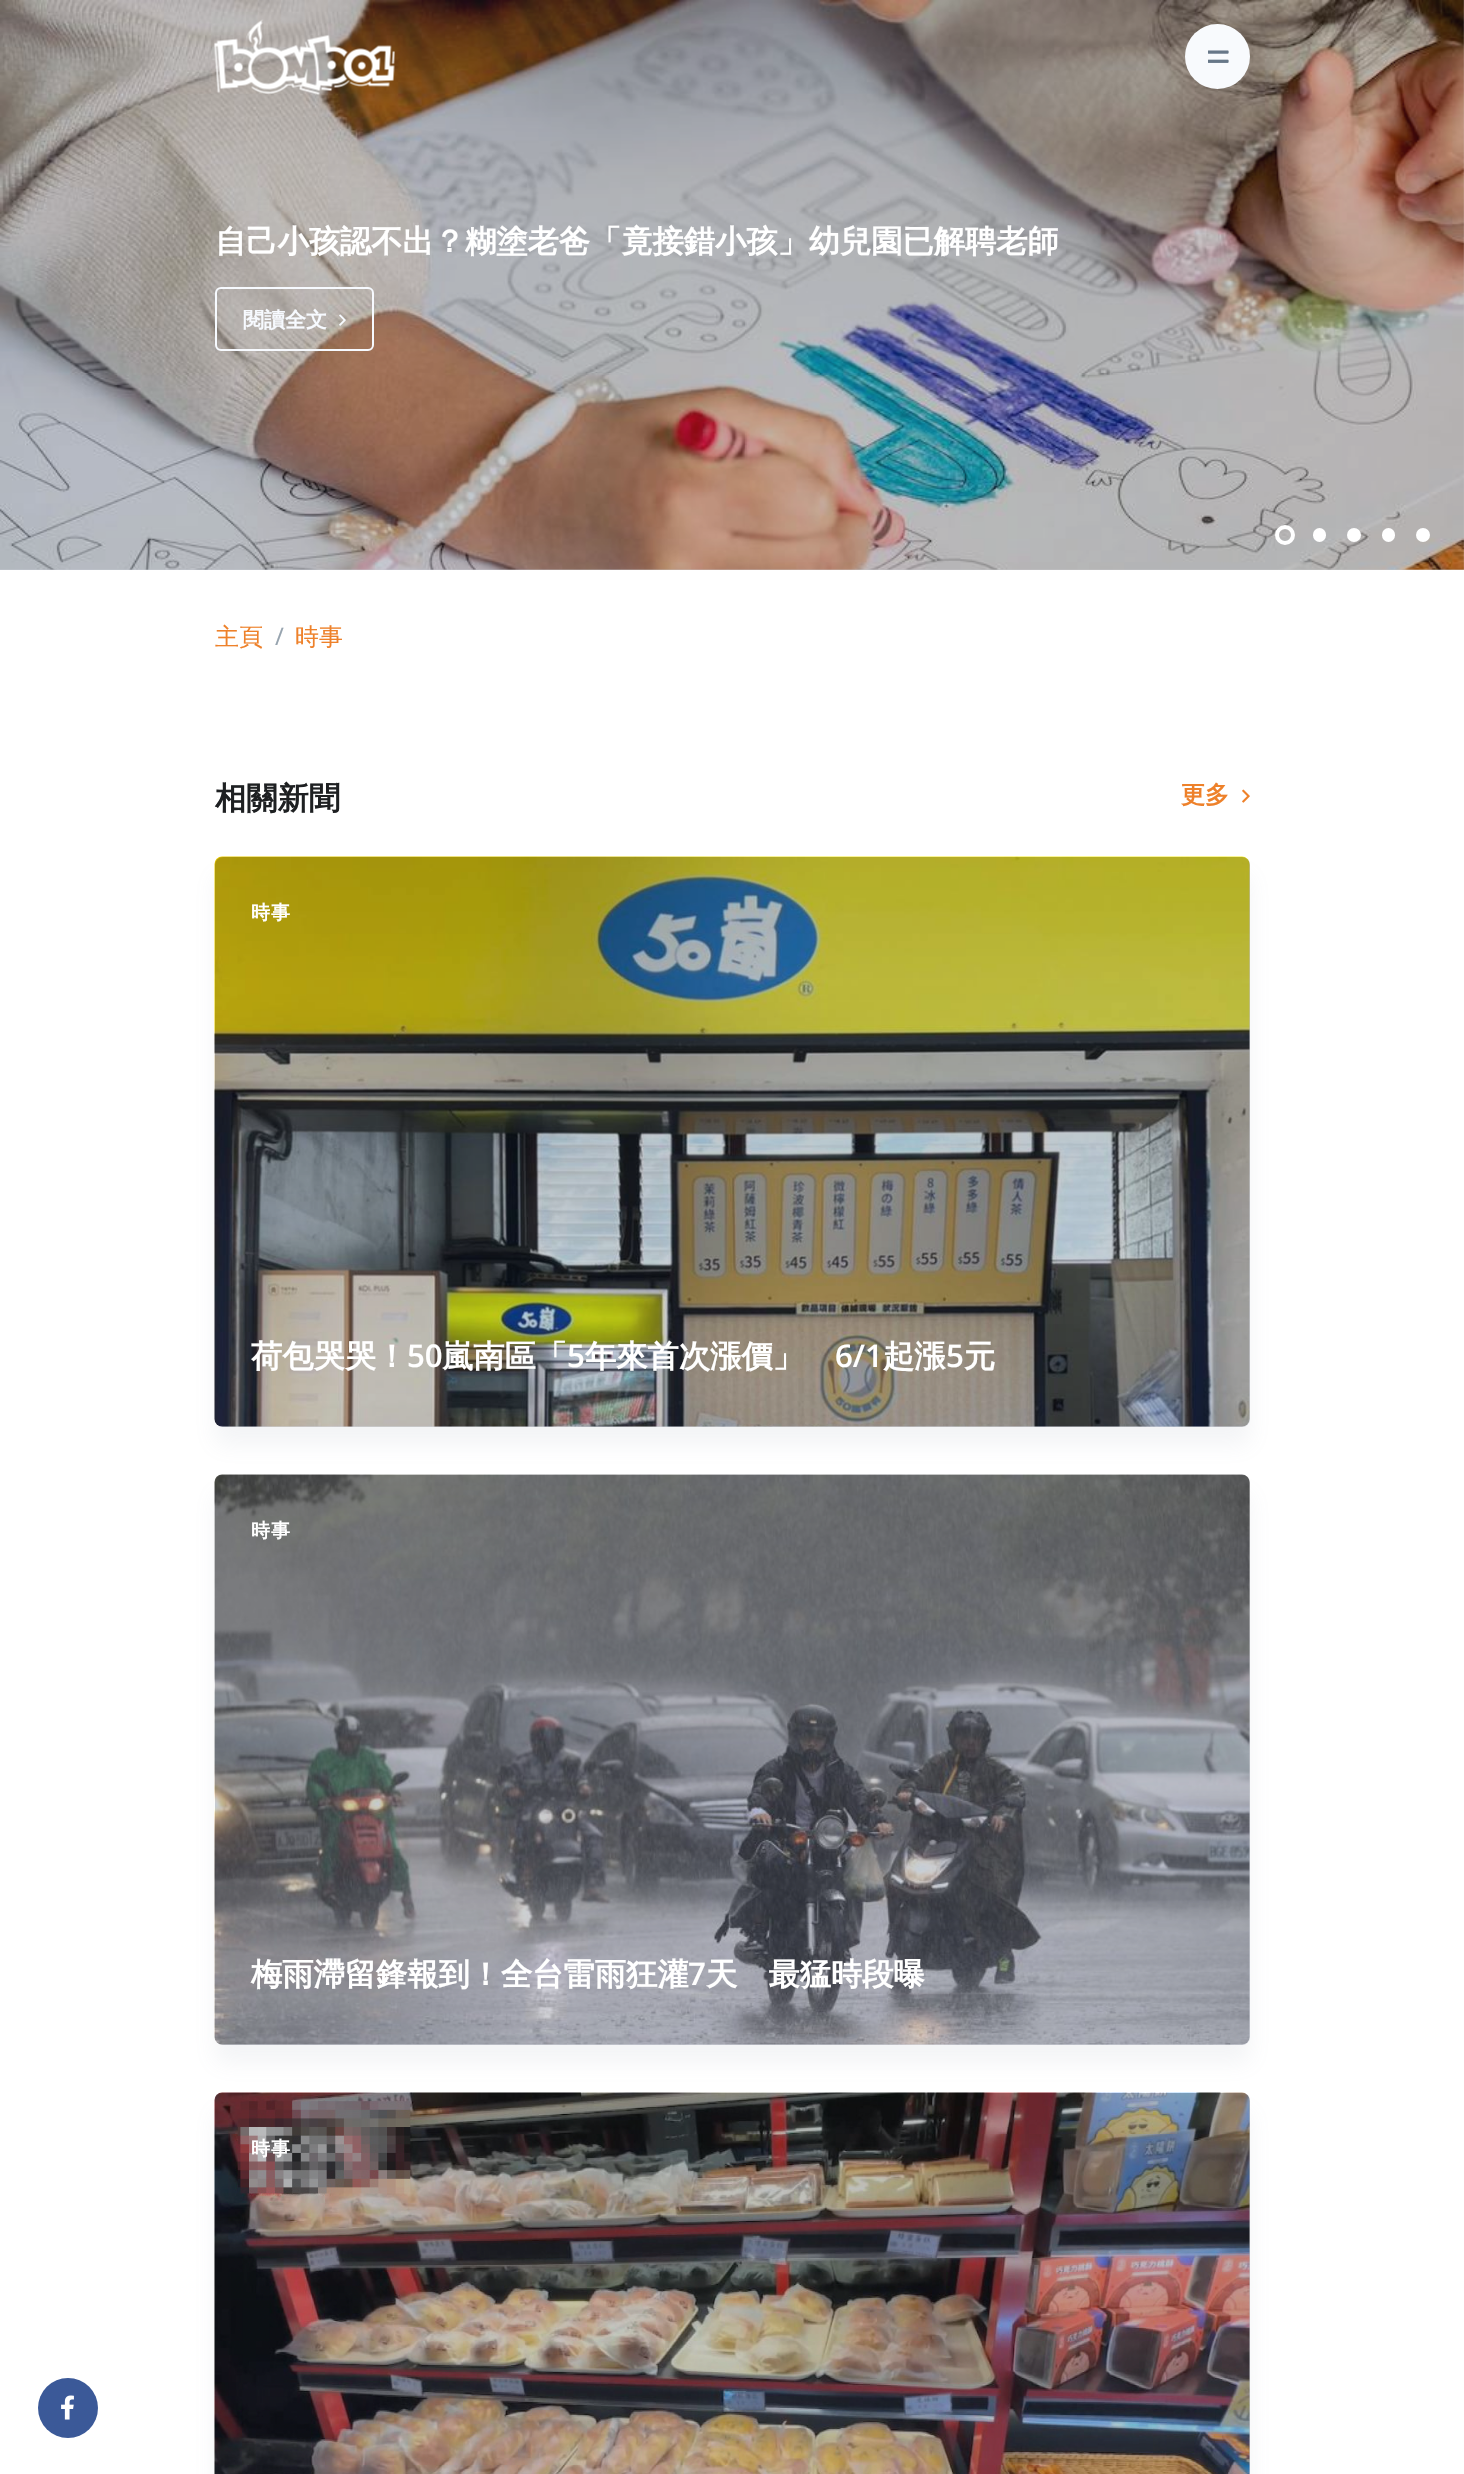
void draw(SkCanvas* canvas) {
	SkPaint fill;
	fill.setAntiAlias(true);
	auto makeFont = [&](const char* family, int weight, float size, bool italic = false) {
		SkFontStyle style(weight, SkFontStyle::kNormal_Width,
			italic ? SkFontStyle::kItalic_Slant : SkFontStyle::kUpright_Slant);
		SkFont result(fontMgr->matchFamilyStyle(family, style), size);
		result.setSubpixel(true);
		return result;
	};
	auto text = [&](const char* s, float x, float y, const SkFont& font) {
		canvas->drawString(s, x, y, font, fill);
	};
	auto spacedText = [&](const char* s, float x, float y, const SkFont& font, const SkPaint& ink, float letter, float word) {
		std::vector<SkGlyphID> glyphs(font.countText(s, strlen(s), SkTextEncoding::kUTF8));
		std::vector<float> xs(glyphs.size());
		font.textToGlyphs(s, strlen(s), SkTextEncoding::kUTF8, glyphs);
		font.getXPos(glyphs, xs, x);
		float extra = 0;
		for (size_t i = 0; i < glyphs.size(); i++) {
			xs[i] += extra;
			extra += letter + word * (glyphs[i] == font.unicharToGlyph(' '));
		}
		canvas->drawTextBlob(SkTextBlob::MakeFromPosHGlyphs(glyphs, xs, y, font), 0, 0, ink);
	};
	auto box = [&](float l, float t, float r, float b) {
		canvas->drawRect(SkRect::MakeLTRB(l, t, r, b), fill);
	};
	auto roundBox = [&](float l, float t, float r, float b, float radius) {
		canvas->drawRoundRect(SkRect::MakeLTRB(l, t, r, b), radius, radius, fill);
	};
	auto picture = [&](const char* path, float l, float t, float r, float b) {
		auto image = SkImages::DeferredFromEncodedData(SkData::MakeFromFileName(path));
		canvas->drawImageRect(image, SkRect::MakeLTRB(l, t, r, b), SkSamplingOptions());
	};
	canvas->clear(0xFFFFFFFF);
	picture("image2.png", 0, 0, 1464, 570);
	{
		const SkColor colors[] = {0x4021325B, 0x401E2022};
		const float stops[] = {0, 1};
		const SkPoint ends[] = {{0, 285}, {1464, 285}};
		fill.setShader(SkGradientShader::MakeLinear(ends, colors, stops, 2, SkTileMode::kClamp));
		fill.setAlpha(255);
	}
	box(0, 0, 1464, 570);
	picture("image0.png", 214, 19, 395, 95);
	fill.setShader(nullptr);
	fill.setColor(0xFFF8FAFD);
	canvas->drawCircle(1217.5f, 56.5f, 32.5f, fill);
	picture("image1.png", 1208, 50, 1229, 63);
	fill.setStyle(SkPaint::kStroke_Style);
	fill.setStrokeWidth(2);
	fill.setColor(0xFFF7FAFF);
	canvas->drawRoundRect(SkRect::MakeLTRB(216, 288, 373, 350), 5, 5, fill);
	picture("image3.png", 339, 314, 346, 326);
	fill.setStrokeWidth(4);
	fill.setColor(0xFFFFFFFF);
	canvas->drawCircle(1285, 535, 8, fill);
	fill.setStyle(SkPaint::kFill_Style);
	roundBox(1313, 528, 1326, 542, 6.5f);
	canvas->drawCircle(1354, 535, 7, fill);
	roundBox(1382, 528, 1395, 542, 6.5f);
	canvas->drawCircle(1423, 535, 7, fill);
	picture("image4.png", 1242, 789, 1250, 803);
	fill.setColor(0x1A8C98A4);
	fill.setMaskFilter(SkMaskFilter::MakeBlur(kNormal_SkBlurStyle, 11));
	canvas->drawRoundRect(SkRect::MakeLTRB(215, 875, 1250, 1445), 8, 8, fill);
	fill.setMaskFilter(nullptr);
	fill.setColor(0xFFFFFFFF);
	roundBox(215, 857, 1250, 1427, 8);
	picture("image5.png", 214, 856, 1250, 1427);
	{
		const SkColor colors[] = {0x4D1E2022, 0x3321325B};
		const float stops[] = {0, 1};
		const SkPoint ends[] = {{732, 857}, {732, 1427}};
		fill.setShader(SkGradientShader::MakeLinear(ends, colors, stops, 2, SkTileMode::kClamp));
		fill.setAlpha(255);
	}
	roundBox(215, 857, 1250, 1427, 8);
	fill.setShader(nullptr);
	fill.setColor(0x1A8C98A4);
	fill.setMaskFilter(SkMaskFilter::MakeBlur(kNormal_SkBlurStyle, 11));
	canvas->drawRoundRect(SkRect::MakeLTRB(215, 1493, 1250, 2063), 8, 8, fill);
	fill.setMaskFilter(nullptr);
	fill.setColor(0xFFFFFFFF);
	roundBox(215, 1475, 1250, 2045, 8);
	picture("image6.png", 214, 1474, 1250, 2045);
	{
		const SkColor colors[] = {0x4D1E2022, 0x3321325B};
		const float stops[] = {0, 1};
		const SkPoint ends[] = {{732, 1475}, {732, 2045}};
		fill.setShader(SkGradientShader::MakeLinear(ends, colors, stops, 2, SkTileMode::kClamp));
		fill.setAlpha(255);
	}
	roundBox(215, 1475, 1250, 2045, 8);
	fill.setShader(nullptr);
	fill.setColor(0x1A8C98A4);
	fill.setMaskFilter(SkMaskFilter::MakeBlur(kNormal_SkBlurStyle, 11));
	canvas->drawRoundRect(SkRect::MakeLTRB(215, 2111, 1250, 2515), 8, 8, fill);
	fill.setMaskFilter(nullptr);
	fill.setColor(0xFFFFFFFF);
	roundBox(215, 2093, 1250, 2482, 8);
	picture("image7.png", 214, 2092, 1250, 2474);
	{
		const SkColor colors[] = {0x4D1E2022, 0x3321325B};
		const float stops[] = {0, 1};
		const SkPoint ends[] = {{732, 2093}, {732, 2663}};
		fill.setShader(SkGradientShader::MakeLinear(ends, colors, stops, 2, SkTileMode::kClamp));
		fill.setAlpha(255);
	}
	roundBox(215, 2093, 1250, 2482, 8);
	fill.setShader(nullptr);
	fill.setColor(0xFF3B5998);
	canvas->drawCircle(68, 2408, 30, fill);
	picture("image8.png", 61, 2395, 74, 2420);
	auto font1 = makeFont("WenQuanYi Zen Hei", 700, 31.25f);
	fill.setColor(0xFFFFFFFF);
	text("自己小孩認不出？糊塗老爸「竟接錯小孩」幼兒園已解聘老師", 215, 252, font1);
	auto font2 = makeFont("WenQuanYi Zen Hei", 700, 21);
	fill.setColor(0xFFF7FAFF);
	text("閱讀全文", 243, 327, font2);
	auto font3 = makeFont("WenQuanYi Zen Hei", 500, 24);
	fill.setColor(0xFFEE812A);
	text("主頁", 215, 645, font3);
	auto font4 = makeFont("Open Sans", 400, 24);
	fill.setColor(0xFF97A4AF);
	text("/", 275, 645, font4);
	fill.setColor(0xFFEE812A);
	text("時事", 295, 645, font3);
	fill.setColor(0xFF1E2022);
	text("相關新聞", 215, 809, font1);
	auto font5 = makeFont("WenQuanYi Zen Hei", 700, 24);
	fill.setColor(0xFFEE812A);
	text("更多", 1181, 803, font5);
	auto font6 = makeFont("WenQuanYi Zen Hei", 700, 19);
	fill.setColor(0xFFFFFFFF);
	spacedText("時事", 251, 919, font6, fill, 1, 0);
	text("荷包哭哭！", 251, 1367, font1);
	auto font7 = makeFont("Open Sans", 600, 31.25f);
	text("50", 407, 1367, font7);
	text("嵐南區「", 442, 1367, font1);
	text("5", 567, 1367, font7);
	text("年來首次漲價」", 585, 1367, font1);
	text("6/1", 835, 1367, font7);
	text("起漲", 883, 1367, font1);
	text("5", 946, 1367, font7);
	text("元", 964, 1367, font1);
	spacedText("時事", 251, 1537, font6, fill, 1, 0);
	text("梅雨滯留鋒報到！全台雷雨狂灌", 251, 1985, font1);
	text("7", 688, 1985, font7);
	text("天　最猛時段曝", 706, 1985, font1);
	spacedText("時事", 251, 2155, font6, fill, 1, 0);
}
